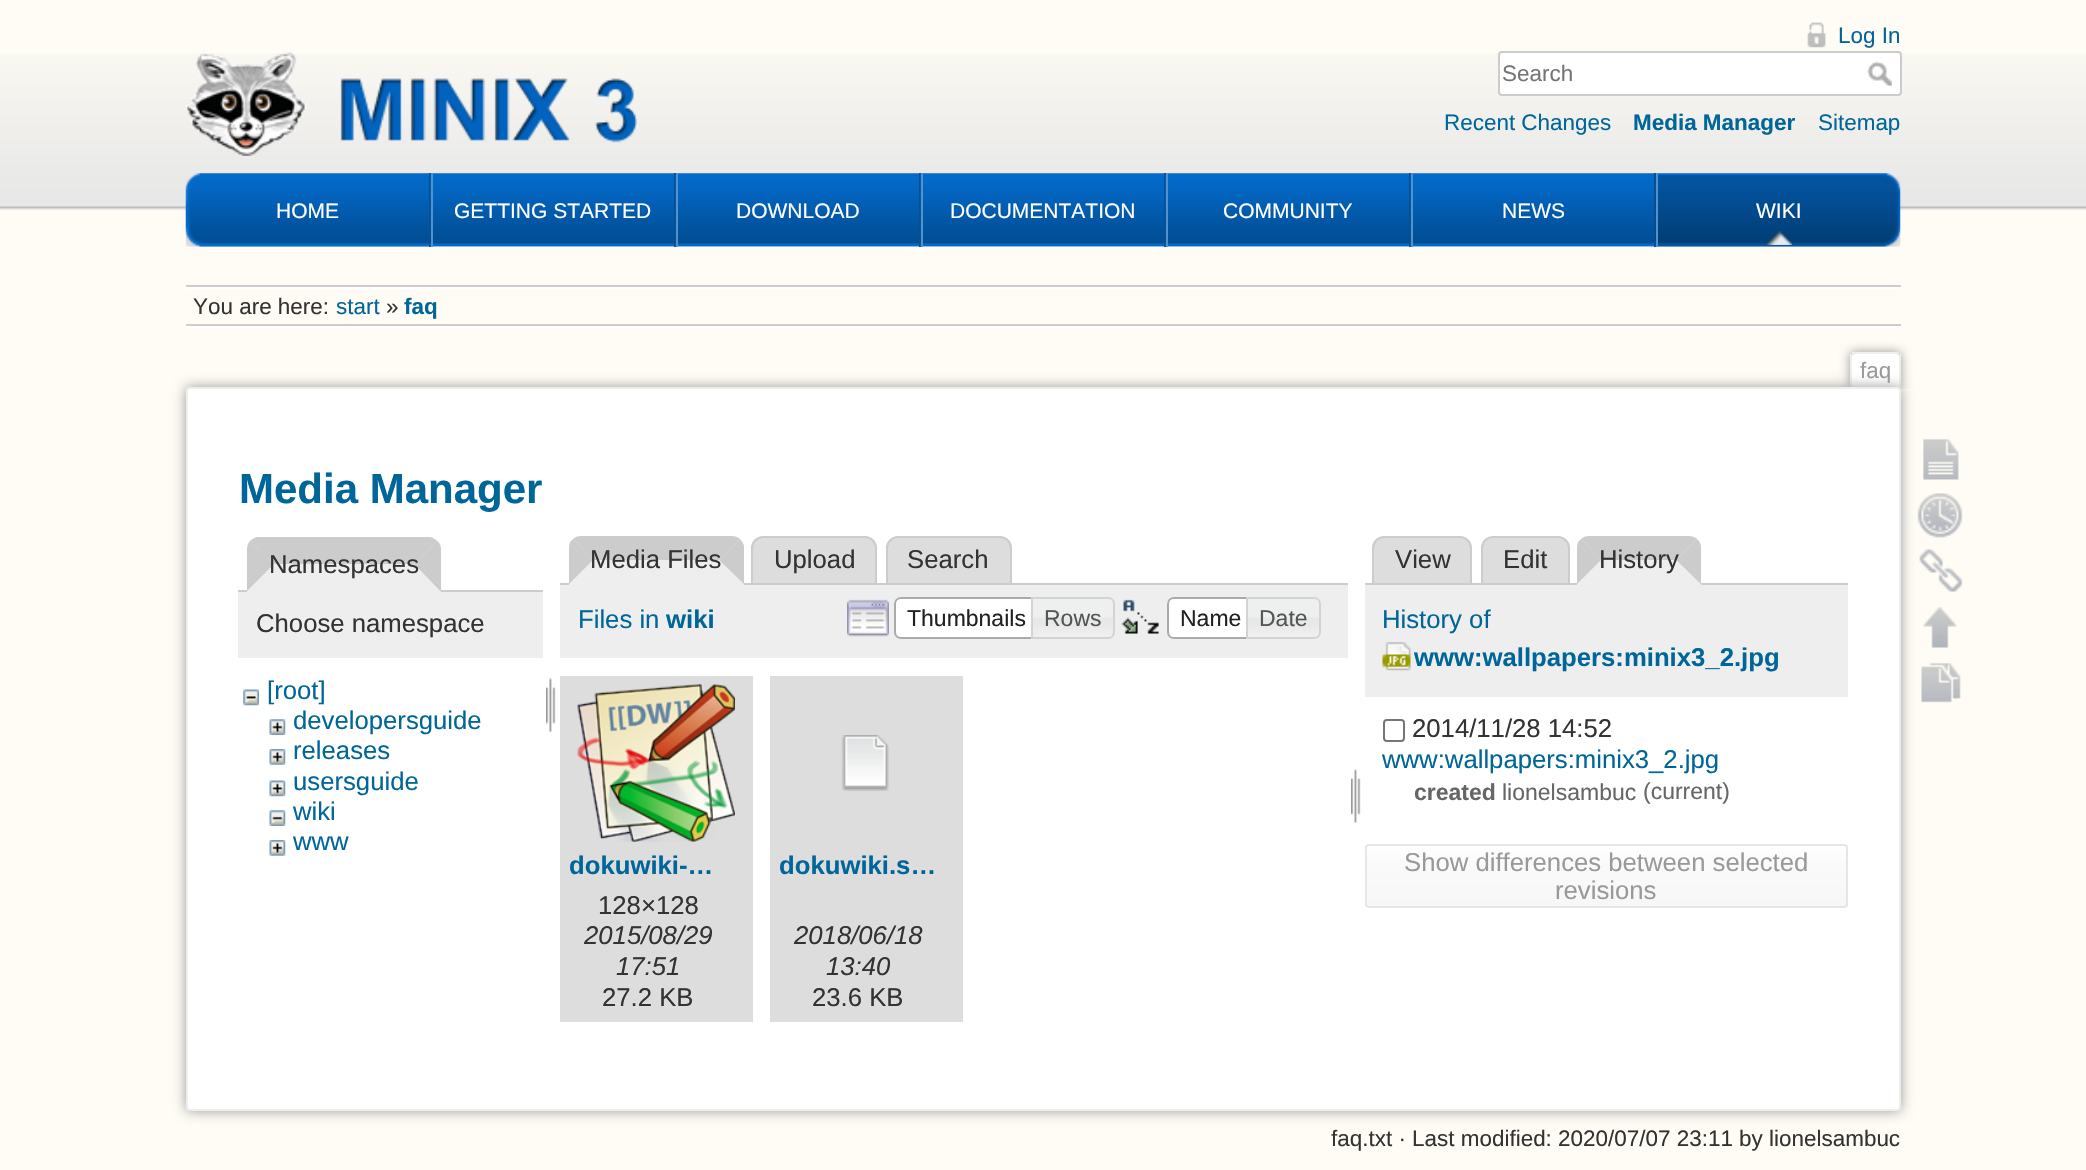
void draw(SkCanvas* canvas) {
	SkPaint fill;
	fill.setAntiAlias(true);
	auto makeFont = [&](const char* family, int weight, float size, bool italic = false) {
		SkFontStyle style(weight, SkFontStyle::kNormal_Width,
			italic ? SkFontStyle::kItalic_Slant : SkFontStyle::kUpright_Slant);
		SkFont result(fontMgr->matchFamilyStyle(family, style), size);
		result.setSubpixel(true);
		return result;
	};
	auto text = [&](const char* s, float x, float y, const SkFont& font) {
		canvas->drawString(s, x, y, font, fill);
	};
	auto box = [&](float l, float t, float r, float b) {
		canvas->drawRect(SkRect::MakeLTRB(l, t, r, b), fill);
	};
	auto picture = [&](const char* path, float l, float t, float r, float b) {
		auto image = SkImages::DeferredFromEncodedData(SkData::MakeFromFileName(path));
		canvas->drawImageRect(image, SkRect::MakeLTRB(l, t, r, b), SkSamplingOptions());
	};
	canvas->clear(0xFFFEFCF4);
	picture("image0.png", 0, 53, 2086, 211);
	picture("image1.png", 1807, 22, 1826, 48);
	fill.setColor(0xFFFFFFFF);
	canvas->drawRoundRect(SkRect::MakeLTRB(1499, 52, 1901, 95), 3, 3, fill);
	fill.setStyle(SkPaint::kStroke_Style);
	fill.setStrokeWidth(2);
	fill.setColor(0xFFCCCCCC);
	canvas->drawRoundRect(SkRect::MakeLTRB(1499, 52, 1901, 95), 3, 3, fill);
	picture("image2.png", 1867, 61, 1892, 86);
	picture("image3.png", 185, 52, 637, 156);
	picture("image4.png", 185, 173, 429, 247);
	fill.setStyle(SkPaint::kFill_Style);
	fill.setColor(0xFF094F90);
	box(429, 173, 431, 247);
	picture("image5.png", 430, 173, 674, 247);
	box(674, 173, 676, 247);
	fill.setColor(0xFF5092D0);
	box(431, 173, 433, 247);
	picture("image5.png", 675, 173, 919, 247);
	fill.setColor(0xFF094F90);
	box(919, 173, 921, 247);
	fill.setColor(0xFF5092D0);
	box(676, 173, 678, 247);
	picture("image5.png", 920, 173, 1164, 247);
	fill.setColor(0xFF094F90);
	box(1164, 173, 1166, 247);
	fill.setColor(0xFF5092D0);
	box(921, 173, 923, 247);
	picture("image5.png", 1165, 173, 1409, 247);
	fill.setColor(0xFF094F90);
	box(1409, 173, 1411, 247);
	fill.setColor(0xFF5092D0);
	box(1166, 173, 1168, 247);
	picture("image5.png", 1410, 173, 1654, 247);
	fill.setColor(0xFF094F90);
	box(1654, 173, 1656, 247);
	fill.setColor(0xFF5092D0);
	box(1411, 173, 1413, 247);
	picture("image6.png", 1655, 173, 1901, 247);
	box(1656, 173, 1658, 247);
	picture("image7.png", 1766, 231, 1792, 245);
	fill.setColor(0xFFCCCCCC);
	box(186, 285, 1901, 287);
	fill.setColor(0xFFFFFFFF);
	box(186, 326, 1901, 328);
	box(186, 287, 1901, 289);
	fill.setColor(0xFFCCCCCC);
	box(186, 324, 1901, 326);
	canvas->save();
	canvas->clipRect(SkRect::MakeLTRB(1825, 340, 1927, 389));
	fill.setColor(0xFF999999);
	fill.setMaskFilter(SkMaskFilter::MakeBlur(kNormal_SkBlurStyle, 5.5f));
	canvas->drawRoundRect(SkRect::MakeLTRB(1850, 352, 1901, 389), 4, 4, fill);
	fill.setMaskFilter(nullptr);
	canvas->restore();
	fill.setColor(0xFFFFFFFF);
	canvas->drawPath(SkPathBuilder().moveTo(1854, 354).lineTo(1897, 354).cubicTo(1898, 354, 1899, 355, 1899, 356).lineTo(1899, 389).lineTo(1852, 389).lineTo(1852, 356).cubicTo(1852, 355, 1853, 354, 1854, 354).close().detach(), fill);
	fill.setColor(0xFFEEEEEE);
	box(1852, 352, 1899, 354);
	box(1899, 354, 1901, 389);
	box(1850, 354, 1852, 389);
	fill.setColor(0xFF999999);
	fill.setMaskFilter(SkMaskFilter::MakeBlur(kNormal_SkBlurStyle, 6.5f));
	canvas->drawRoundRect(SkRect::MakeLTRB(186, 387, 1901, 1111), 4, 4, fill);
	fill.setMaskFilter(nullptr);
	fill.setColor(0xFFFFFFFF);
	canvas->drawRoundRect(SkRect::MakeLTRB(187, 388, 1900, 1110), 3, 3, fill);
	fill.setStyle(SkPaint::kStroke_Style);
	fill.setColor(0xFFEEEEEE);
	canvas->drawRoundRect(SkRect::MakeLTRB(187, 388, 1900, 1110), 3, 3, fill);
	fill.setStyle(SkPaint::kFill_Style);
	fill.setColor(0xFFCCCCCC);
	box(238, 590, 543, 592);
	fill.setColor(0xFFEEEEEE);
	canvas->drawPath(SkPathBuilder().moveTo(259, 537).lineTo(429, 537).cubicTo(435.5f, 537, 441, 542.5f, 441, 549).lineTo(441, 592).lineTo(247, 592).lineTo(247, 549).cubicTo(247, 542.5f, 252.5f, 537, 259, 537).close().detach(), fill);
	fill.setColor(0xFFCCCCCC);
	canvas->drawPath(SkPathBuilder().moveTo(430, 537).lineTo(257, 537).cubicTo(254, 538, 252, 539, 250, 541).lineTo(274, 564).lineTo(414, 564).lineTo(437, 541).cubicTo(435, 539, 433, 538, 430, 537).close().detach(), fill);
	canvas->drawPath(SkPathBuilder().moveTo(437, 541).lineTo(414, 564).lineTo(441, 592).lineTo(441, 550).cubicTo(441, 547, 440, 543, 437, 541).close().detach(), fill);
	fill.setColor(0xFFEEEEEE);
	canvas->drawPath(SkPathBuilder().moveTo(441, 592).lineTo(414, 564).lineTo(274, 564).lineTo(247, 591).close().detach(), fill);
	fill.setColor(0xFFCCCCCC);
	canvas->drawPath(SkPathBuilder().moveTo(247, 591).lineTo(274, 564).lineTo(250, 541).cubicTo(248, 543, 247, 547, 247, 550).close().detach(), fill);
	fill.setColor(0xFFEEEEEE);
	box(238, 592, 543, 658);
	picture("image8.png", 243, 689, 259, 706);
	picture("image9.png", 269, 719, 286, 735);
	picture("image10.png", 269, 749, 286, 765);
	picture("image11.png", 269, 780, 286, 797);
	picture("image12.png", 269, 810, 286, 826);
	picture("image10.png", 269, 840, 286, 856);
	picture("image13.png", 546, 677, 556, 732);
	fill.setColor(0xFFDDDDDD);
	canvas->drawPath(SkPathBuilder().moveTo(763, 537).lineTo(865, 537).cubicTo(871, 537, 876, 542, 876, 548).lineTo(876, 584).lineTo(752, 584).lineTo(752, 548).cubicTo(752, 542, 757, 537, 763, 537).close().detach(), fill);
	fill.setStyle(SkPaint::kStroke_Style);
	fill.setColor(0xFFCCCCCC);
	canvas->drawPath(SkPathBuilder().moveTo(763, 537).lineTo(865, 537).cubicTo(871, 537, 876, 542, 876, 548).lineTo(876, 584).lineTo(752, 584).lineTo(752, 548).cubicTo(752, 542, 757, 537, 763, 537).close().detach(), fill);
	fill.setStyle(SkPaint::kFill_Style);
	fill.setColor(0xFFDDDDDD);
	canvas->drawPath(SkPathBuilder().moveTo(898, 537).lineTo(1000, 537).cubicTo(1006, 537, 1011, 542, 1011, 548).lineTo(1011, 584).lineTo(887, 584).lineTo(887, 548).cubicTo(887, 542, 892, 537, 898, 537).close().detach(), fill);
	fill.setStyle(SkPaint::kStroke_Style);
	fill.setColor(0xFFCCCCCC);
	canvas->drawPath(SkPathBuilder().moveTo(898, 537).lineTo(1000, 537).cubicTo(1006, 537, 1011, 542, 1011, 548).lineTo(1011, 584).lineTo(887, 584).lineTo(887, 548).cubicTo(887, 542, 892, 537, 898, 537).close().detach(), fill);
	fill.setStyle(SkPaint::kFill_Style);
	box(560, 583, 1348, 585);
	fill.setColor(0xFFEEEEEE);
	canvas->drawPath(SkPathBuilder().moveTo(581, 536).lineTo(732, 536).cubicTo(738.5f, 536, 744, 541.5f, 744, 548).lineTo(744, 585).lineTo(569, 585).lineTo(569, 548).cubicTo(569, 541.5f, 574.5f, 536, 581, 536).close().detach(), fill);
	fill.setColor(0xFFCCCCCC);
	canvas->drawPath(SkPathBuilder().moveTo(582, 536).cubicTo(578, 536, 575, 537, 573, 539).lineTo(593, 560).lineTo(719, 560).lineTo(740, 539).cubicTo(738, 537, 734, 536, 731, 536).close().detach(), fill);
	canvas->drawPath(SkPathBuilder().moveTo(744, 584).lineTo(719, 560).lineTo(740, 539).cubicTo(742, 541, 743, 543, 744, 546).close().detach(), fill);
	fill.setColor(0xFFEEEEEE);
	canvas->drawPath(SkPathBuilder().moveTo(743, 584).lineTo(719, 560).lineTo(593, 560).lineTo(569, 584).close().detach(), fill);
	fill.setColor(0xFFCCCCCC);
	canvas->drawPath(SkPathBuilder().moveTo(573, 539).cubicTo(570, 541, 569, 544, 569, 548).lineTo(569, 584).lineTo(593, 560).close().detach(), fill);
	fill.setColor(0xFFEEEEEE);
	box(560, 585, 1348, 658);
	picture("image14.png", 847, 599, 889, 637);
	fill.setColor(0xFFFFFFFF);
	canvas->drawPath(SkPathBuilder().moveTo(901, 597).lineTo(1040, 597).lineTo(1040, 639).lineTo(901, 639).cubicTo(897, 639, 894, 636, 894, 632).lineTo(894, 604).cubicTo(894, 600, 897, 597, 901, 597).close().detach(), fill);
	picture("image15.png", 896, 597, 899, 599);
	fill.setStyle(SkPaint::kStroke_Style);
	fill.setColor(0xFFAAAAAA);
	canvas->drawPath(SkPathBuilder().moveTo(901, 598).lineTo(1039, 598).lineTo(1039, 638).lineTo(901, 638).cubicTo(897.5f, 638, 895, 635.5f, 895, 632).lineTo(895, 604).cubicTo(895, 600.5f, 897.5f, 598, 901, 598).close().detach(), fill);
	picture("image16.png", 1030, 597, 1115, 639);
	fill.setColor(0xFFD3D3D3);
	canvas->drawPath(SkPathBuilder().moveTo(1032, 598).lineTo(1108, 598).cubicTo(1111.5f, 598, 1114, 600.5f, 1114, 604).lineTo(1114, 632).cubicTo(1114, 635.5f, 1111.5f, 638, 1108, 638).lineTo(1032, 638).close().detach(), fill);
	picture("image17.png", 1121, 599, 1159, 634);
	fill.setStyle(SkPaint::kFill_Style);
	fill.setColor(0xFFFFFFFF);
	canvas->drawPath(SkPathBuilder().moveTo(1174, 597).lineTo(1255, 597).lineTo(1255, 639).lineTo(1174, 639).cubicTo(1170, 639, 1167, 636, 1167, 632).lineTo(1167, 604).cubicTo(1167, 600, 1170, 597, 1174, 597).close().detach(), fill);
	picture("image15.png", 1169, 597, 1172, 599);
	fill.setStyle(SkPaint::kStroke_Style);
	fill.setColor(0xFFAAAAAA);
	canvas->drawPath(SkPathBuilder().moveTo(1174, 598).lineTo(1254, 598).lineTo(1254, 638).lineTo(1174, 638).cubicTo(1170.5f, 638, 1168, 635.5f, 1168, 632).lineTo(1168, 604).cubicTo(1168, 600.5f, 1170.5f, 598, 1174, 598).close().detach(), fill);
	picture("image18.png", 1248, 597, 1321, 639);
	fill.setColor(0xFFD3D3D3);
	canvas->drawPath(SkPathBuilder().moveTo(1247, 598).lineTo(1314, 598).cubicTo(1317.5f, 598, 1320, 600.5f, 1320, 604).lineTo(1320, 632).cubicTo(1320, 635.5f, 1317.5f, 638, 1314, 638).lineTo(1247, 638).close().detach(), fill);
	picture("image19.png", 1351, 768, 1361, 823);
	fill.setStyle(SkPaint::kFill_Style);
	fill.setColor(0xFFDDDDDD);
	box(560, 676, 753, 1022);
	picture("image20.png", 577, 684, 735, 842);
	box(770, 676, 963, 1022);
	picture("image21.png", 841, 735, 889, 791);
	canvas->drawPath(SkPathBuilder().moveTo(1384, 537).lineTo(1460, 537).cubicTo(1466, 537, 1471, 542, 1471, 548).lineTo(1471, 584).lineTo(1373, 584).lineTo(1373, 548).cubicTo(1373, 542, 1378, 537, 1384, 537).close().detach(), fill);
	fill.setStyle(SkPaint::kStroke_Style);
	fill.setColor(0xFFCCCCCC);
	canvas->drawPath(SkPathBuilder().moveTo(1384, 537).lineTo(1460, 537).cubicTo(1466, 537, 1471, 542, 1471, 548).lineTo(1471, 584).lineTo(1373, 584).lineTo(1373, 548).cubicTo(1373, 542, 1378, 537, 1384, 537).close().detach(), fill);
	fill.setStyle(SkPaint::kFill_Style);
	fill.setColor(0xFFDDDDDD);
	canvas->drawPath(SkPathBuilder().moveTo(1493, 537).lineTo(1558, 537).cubicTo(1564, 537, 1569, 542, 1569, 548).lineTo(1569, 584).lineTo(1482, 584).lineTo(1482, 548).cubicTo(1482, 542, 1487, 537, 1493, 537).close().detach(), fill);
	fill.setStyle(SkPaint::kStroke_Style);
	fill.setColor(0xFFCCCCCC);
	canvas->drawPath(SkPathBuilder().moveTo(1493, 537).lineTo(1558, 537).cubicTo(1564, 537, 1569, 542, 1569, 548).lineTo(1569, 584).lineTo(1482, 584).lineTo(1482, 548).cubicTo(1482, 542, 1487, 537, 1493, 537).close().detach(), fill);
	fill.setStyle(SkPaint::kFill_Style);
	box(1365, 583, 1848, 585);
	fill.setColor(0xFFEEEEEE);
	canvas->drawPath(SkPathBuilder().moveTo(1589, 536).lineTo(1689, 536).cubicTo(1695.5f, 536, 1701, 541.5f, 1701, 548).lineTo(1701, 585).lineTo(1577, 585).lineTo(1577, 548).cubicTo(1577, 541.5f, 1582.5f, 536, 1589, 536).close().detach(), fill);
	fill.setColor(0xFFCCCCCC);
	canvas->drawPath(SkPathBuilder().moveTo(1590, 536).cubicTo(1586, 536, 1583, 537, 1581, 539).lineTo(1601, 560).lineTo(1676, 560).lineTo(1697, 539).cubicTo(1695, 537, 1692, 536, 1688, 536).close().detach(), fill);
	canvas->drawPath(SkPathBuilder().moveTo(1701, 584).lineTo(1676, 560).lineTo(1697, 539).cubicTo(1700, 542, 1701, 544, 1701, 548).close().detach(), fill);
	fill.setColor(0xFFEEEEEE);
	canvas->drawPath(SkPathBuilder().moveTo(1700, 584).lineTo(1676, 560).lineTo(1601, 560).lineTo(1577, 584).close().detach(), fill);
	fill.setColor(0xFFCCCCCC);
	canvas->drawPath(SkPathBuilder().moveTo(1581, 539).cubicTo(1578, 541, 1577, 544, 1577, 548).lineTo(1577, 584).lineTo(1601, 560).close().detach(), fill);
	fill.setColor(0xFFEEEEEE);
	box(1365, 585, 1848, 697);
	picture("image22.png", 1382, 642, 1411, 671);
	fill.setStyle(SkPaint::kStroke_Style);
	fill.setColor(0xFF767676);
	canvas->drawRoundRect(SkRect::MakeLTRB(1384, 720, 1404, 741), 3, 3, fill);
	canvas->save();
	canvas->clipPath(SkPathBuilder().moveTo(1369, 844).lineTo(1844, 844).cubicTo(1846, 844, 1848, 846, 1848, 848).lineTo(1848, 904).cubicTo(1848, 906, 1846, 908, 1844, 908).lineTo(1369, 908).cubicTo(1367, 908, 1365, 906, 1365, 904).lineTo(1365, 848).cubicTo(1365, 846, 1367, 844, 1369, 844).close().detach(), true);
	fill.setStyle(SkPaint::kFill_Style);
	{
		const SkColor colors[] = {0xFFFFFFFF, 0xFFFAFAFA, 0xFFF7F7F7, 0xFFE6E6E6};
		const float stops[] = {0, 0.3f, 0.99f, 0.99f};
		const SkPoint ends[] = {{1607, 845}, {1607, 907}};
		fill.setShader(SkGradientShader::MakeLinear(ends, colors, stops, 4, SkTileMode::kClamp));
		fill.setAlpha(255);
	}
	box(1365, 845, 1848, 907);
	canvas->restore();
	fill.setStyle(SkPaint::kStroke_Style);
	fill.setShader(nullptr);
	fill.setColor(0xFFE6E6E6);
	canvas->drawRoundRect(SkRect::MakeLTRB(1366, 845, 1847, 907), 3, 3, fill);
	picture("image23.png", 1923, 439, 1959, 480);
	picture("image24.png", 1917, 493, 1963, 538);
	picture("image25.png", 1919, 549, 1963, 592);
	picture("image26.png", 1923, 607, 1957, 648);
	picture("image27.png", 1921, 663, 1961, 703);
	auto font1 = makeFont("Liberation Sans", 400, 22.45f);
	fill.setStyle(SkPaint::kFill_Style);
	fill.setColor(0xFF006699);
	text("Log In", 1838, 43, font1);
	fill.setColor(0xFF757575);
	text("Search", 1502, 81, font1);
	fill.setColor(0xFF006699);
	text("Recent Changes", 1444, 130, font1);
	auto font2 = makeFont("Liberation Sans", 700, 22.45f);
	text("Media Manager", 1633, 130, font2);
	text("Sitemap", 1818, 130, font1);
	auto font3 = makeFont("Liberation Sans", 400, 21);
	fill.setColor(0xFFFFFFFF);
	text("HOME", 276, 218, font3);
	text("GETTING STARTED", 454, 218, font3);
	text("DOWNLOAD", 736, 218, font3);
	text("DOCUMENTATION", 950, 218, font3);
	text("COMMUNITY", 1223, 218, font3);
	text("NEWS", 1502, 218, font3);
	text("WIKI", 1756, 218, font3);
	fill.setColor(0xFF333333);
	text("You are here:", 193, 314, font1);
	fill.setColor(0xFF006699);
	text("start", 336, 314, font1);
	fill.setColor(0xFF333333);
	text("»", 386, 314, font1);
	fill.setColor(0xFF006699);
	text("faq", 404, 314, font2);
	fill.setColor(0xFF999999);
	text("faq", 1860, 378, font1);
	auto font4 = makeFont("Liberation Sans", 700, 42);
	fill.setColor(0xFF006699);
	text("Media Manager", 239, 503, font4);
	auto font5 = makeFont("Liberation Sans", 400, 25.7f);
	fill.setColor(0xFF333333);
	text("Namespaces", 269, 573, font5);
	text("Choose namespace", 256, 632, font5);
	fill.setColor(0xFF006699);
	text("[root]", 267, 699, font5);
	text("developersguide", 293, 729, font5);
	text("releases", 293, 759, font5);
	text("usersguide", 293, 790, font5);
	text("wiki", 293, 820, font5);
	text("www", 293, 850, font5);
	fill.setColor(0xFF333333);
	text("Media Files", 590, 568, font5);
	text("Upload", 774, 568, font5);
	text("Search", 907, 568, font5);
	fill.setColor(0xFF006699);
	text("Files in", 578, 628, font5);
	auto font6 = makeFont("Liberation Sans", 700, 25.7f);
	text("wiki", 666, 628, font6);
	auto font7 = makeFont("Liberation Sans", 400, 23);
	fill.setColor(0xFF212121);
	text("Thumbnails", 907, 626, font7);
	fill.setColor(0xFF555555);
	text("Rows", 1044, 626, font7);
	fill.setColor(0xFF212121);
	text("Name", 1180, 626, font7);
	fill.setColor(0xFF555555);
	text("Date", 1259, 626, font7);
	fill.setColor(0xFF006699);
	text("dokuwiki-…", 569, 874, font6);
	fill.setColor(0xFF333333);
	text("128×128", 598, 914, font5);
	auto font8 = makeFont("Liberation Sans", 400, 25.7f, true);
	text("2015/08/29", 584, 944, font8);
	text("17:51", 616, 975, font8);
	text("27.2 KB", 602, 1006, font5);
	fill.setColor(0xFF006699);
	text("dokuwiki.s…", 779, 874, font6);
	fill.setColor(0xFF333333);
	text("2018/06/18", 794, 944, font8);
	text("13:40", 826, 975, font8);
	text("23.6 KB", 812, 1006, font5);
	text("View", 1395, 568, font5);
	text("Edit", 1503, 568, font5);
	text("History", 1599, 568, font5);
	fill.setColor(0xFF006699);
	text("History of", 1382, 628, font5);
	text("www:wallpapers:minix3_2.jpg", 1414, 666, font6);
	fill.setColor(0xFF333333);
	text("2014/11/28 14:52", 1412, 737, font5);
	fill.setColor(0xFF006699);
	text("www:wallpapers:minix3_2.jpg", 1382, 768, font5);
	auto font9 = makeFont("Liberation Sans", 700, 23);
	fill.setColor(0xFF666666);
	text("created", 1414, 800, font9);
	text("lionelsambuc", 1502, 800, font7);
	text("(current)", 1643, 799, font7);
	fill.setColor(0xFF999999);
	text("Show differences between selected", 1404, 871, font5);
	text("revisions", 1555, 899, font5);
	fill.setColor(0xFF333333);
	text("faq.txt · Last modified: 2020/07/07 23:11 by lionelsambuc", 1331, 1146, font1);
}
